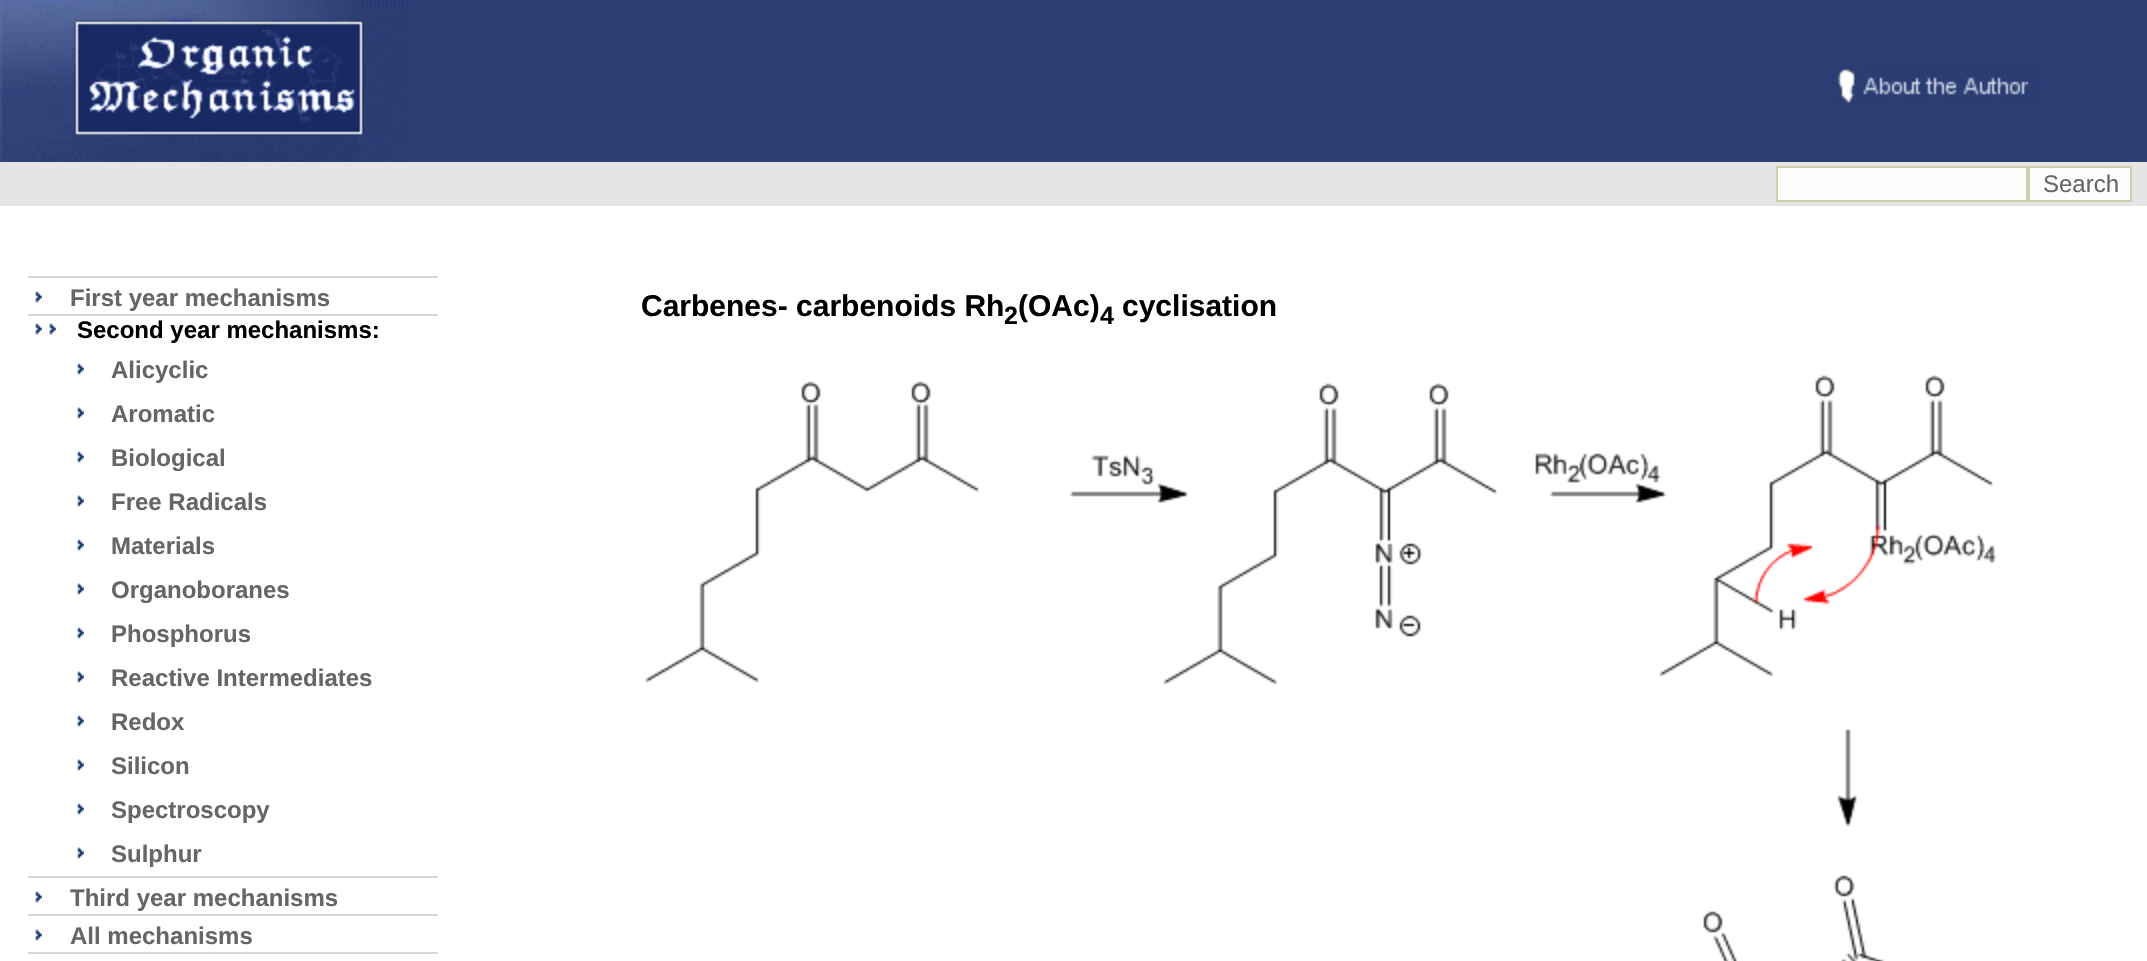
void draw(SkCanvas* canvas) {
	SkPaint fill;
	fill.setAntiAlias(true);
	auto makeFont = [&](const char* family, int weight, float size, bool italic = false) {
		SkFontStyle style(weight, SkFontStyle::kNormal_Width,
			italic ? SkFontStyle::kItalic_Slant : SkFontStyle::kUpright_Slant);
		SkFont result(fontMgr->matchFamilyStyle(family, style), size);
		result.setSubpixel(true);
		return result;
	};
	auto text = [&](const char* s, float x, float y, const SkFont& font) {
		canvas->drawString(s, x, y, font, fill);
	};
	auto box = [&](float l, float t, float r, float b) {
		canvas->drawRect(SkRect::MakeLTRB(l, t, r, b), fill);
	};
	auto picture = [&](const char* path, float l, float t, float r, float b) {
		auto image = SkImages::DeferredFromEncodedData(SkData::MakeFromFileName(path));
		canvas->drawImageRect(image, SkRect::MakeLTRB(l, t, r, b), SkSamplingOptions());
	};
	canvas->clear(0xFFFFFFFF);
	fill.setColor(0xFF2C3E73);
	box(408, 0, 2147, 162);
	picture("image0.png", 0, 0, 408, 162);
	picture("image1.png", 1831, 62, 2042, 108);
	fill.setColor(0xFFE5E5E5);
	box(0, 162, 2147, 206);
	fill.setColor(0xFFFDFDFB);
	canvas->drawRect(SkRect::MakeLTRB(1777, 167, 2027, 201), fill);
	fill.setStyle(SkPaint::kStroke_Style);
	fill.setStrokeWidth(2);
	fill.setColor(0xFFCFCEAF);
	canvas->drawRect(SkRect::MakeLTRB(1777, 167, 2027, 201), fill);
	fill.setStyle(SkPaint::kFill_Style);
	fill.setColor(0xFFFDFDFB);
	canvas->drawRect(SkRect::MakeLTRB(2029, 167, 2131, 201), fill);
	fill.setStyle(SkPaint::kStroke_Style);
	fill.setColor(0xFFCFCEAF);
	canvas->drawRect(SkRect::MakeLTRB(2029, 167, 2131, 201), fill);
	fill.setStyle(SkPaint::kFill_Style);
	fill.setColor(0xFFD5D5D5);
	box(28, 276, 438, 278);
	picture("image2.png", 35, 291, 42, 303);
	box(28, 314, 438, 316);
	picture("image2.png", 35, 323, 42, 335);
	picture("image2.png", 49, 323, 56, 335);
	picture("image2.png", 77, 363, 84, 375);
	picture("image2.png", 77, 407, 84, 419);
	picture("image2.png", 77, 451, 84, 463);
	picture("image2.png", 77, 495, 84, 507);
	picture("image2.png", 77, 539, 84, 551);
	picture("image2.png", 77, 583, 84, 595);
	picture("image2.png", 77, 627, 84, 639);
	picture("image2.png", 77, 671, 84, 683);
	picture("image2.png", 77, 715, 84, 727);
	picture("image2.png", 77, 759, 84, 771);
	picture("image2.png", 77, 803, 84, 815);
	picture("image2.png", 77, 847, 84, 859);
	box(28, 876, 438, 878);
	picture("image2.png", 35, 891, 42, 903);
	box(28, 914, 438, 916);
	picture("image2.png", 35, 929, 42, 941);
	box(28, 952, 438, 954);
	picture("image3.png", 645, 375, 1997, 961);
	auto font1 = makeFont("Liberation Sans", 400, 24);
	fill.setColor(0xFF666666);
	text("Search", 2043, 192, font1);
	auto font2 = makeFont("Liberation Sans", 700, 24);
	text("First year mechanisms", 70, 306, font2);
	fill.setColor(0xFF000000);
	text("Second year mechanisms:", 77, 338, font2);
	fill.setColor(0xFF666666);
	text("Alicyclic", 111, 378, font2);
	text("Aromatic", 111, 422, font2);
	text("Biological", 111, 466, font2);
	text("Free Radicals", 111, 510, font2);
	text("Materials", 111, 554, font2);
	text("Organoboranes", 111, 598, font2);
	text("Phosphorus", 111, 642, font2);
	text("Reactive Intermediates", 111, 686, font2);
	text("Redox", 111, 730, font2);
	text("Silicon", 111, 774, font2);
	text("Spectroscopy", 111, 818, font2);
	text("Sulphur", 111, 862, font2);
	text("Third year mechanisms", 70, 906, font2);
	text("All mechanisms", 70, 944, font2);
	auto font3 = makeFont("Liberation Sans", 700, 30);
	fill.setColor(0xFF000000);
	text("Carbenes- carbenoids Rh", 641, 316, font3);
	auto font4 = makeFont("Liberation Sans", 700, 25);
	text("2", 1004, 324, font4);
	text("(OAc)", 1018, 316, font3);
	text("4", 1100, 324, font4);
	text("cyclisation", 1122, 316, font3);
}
